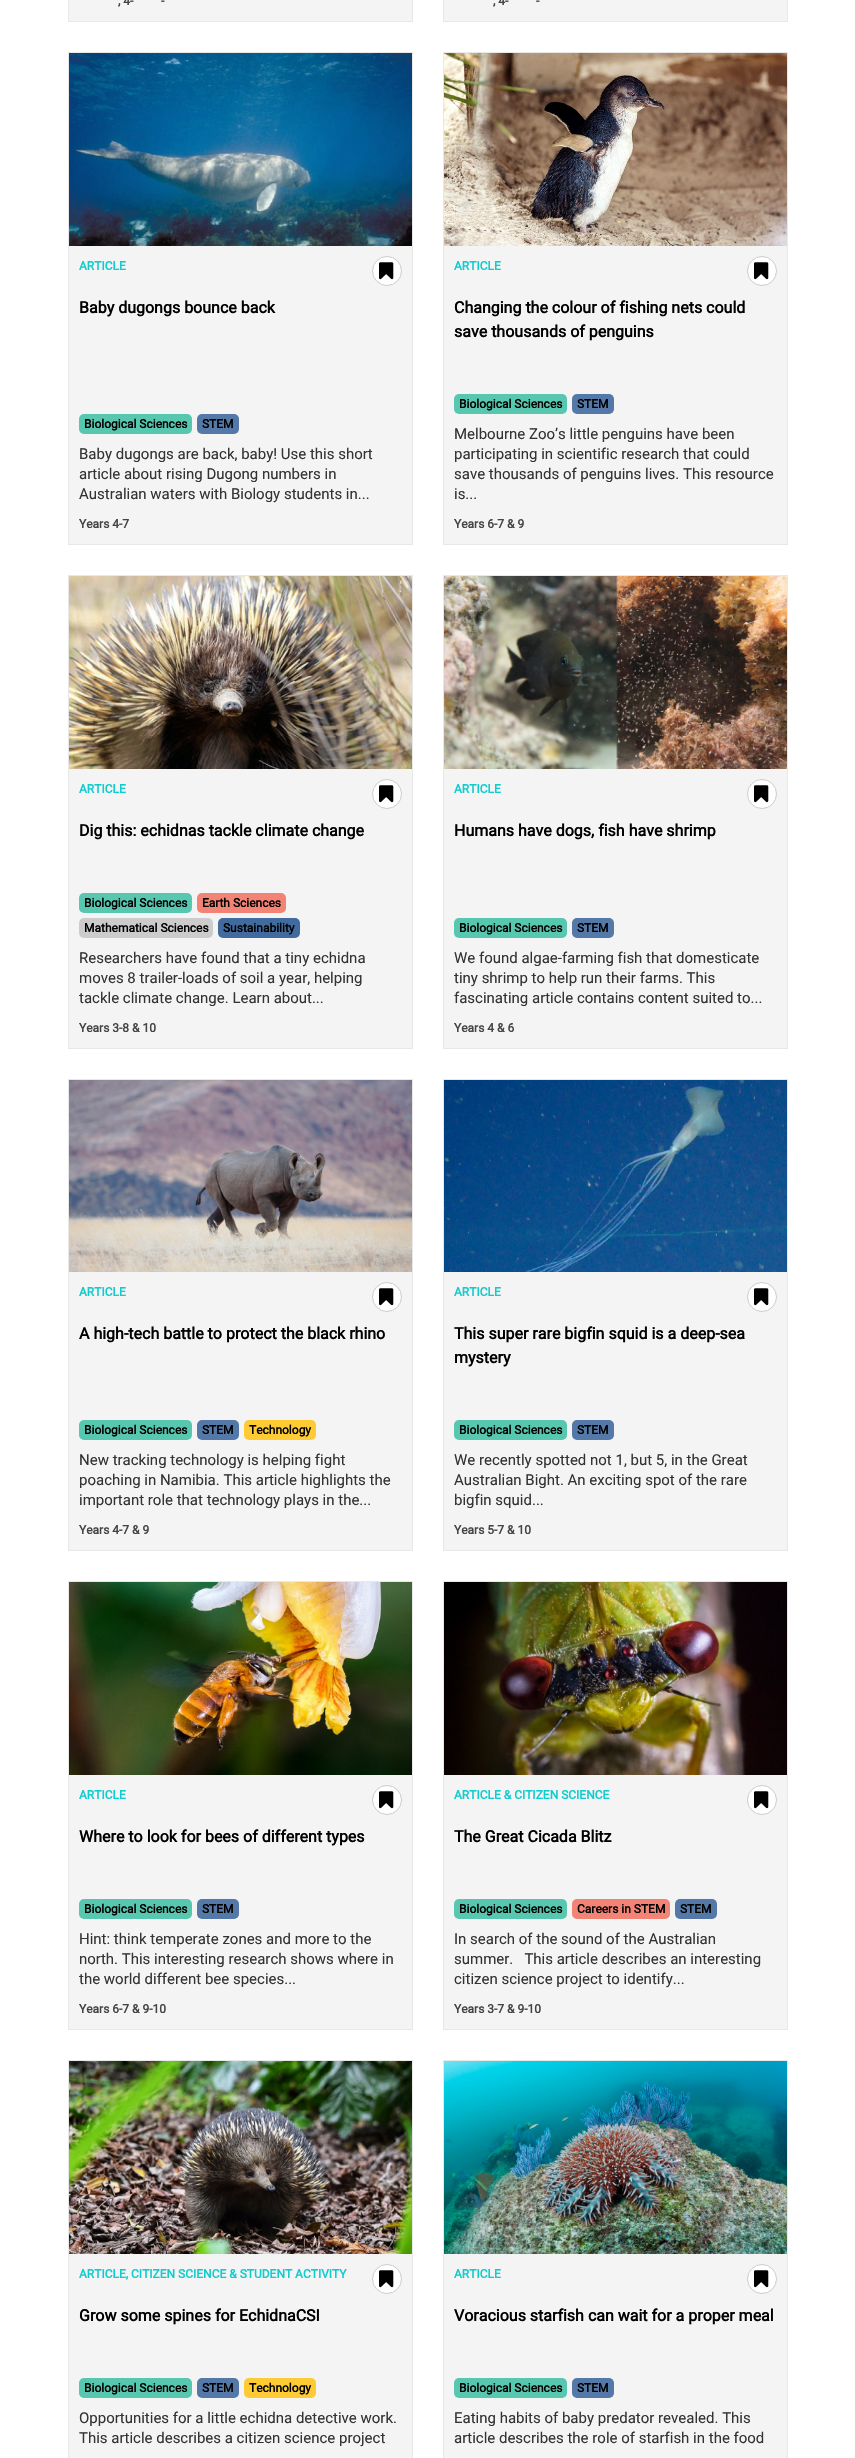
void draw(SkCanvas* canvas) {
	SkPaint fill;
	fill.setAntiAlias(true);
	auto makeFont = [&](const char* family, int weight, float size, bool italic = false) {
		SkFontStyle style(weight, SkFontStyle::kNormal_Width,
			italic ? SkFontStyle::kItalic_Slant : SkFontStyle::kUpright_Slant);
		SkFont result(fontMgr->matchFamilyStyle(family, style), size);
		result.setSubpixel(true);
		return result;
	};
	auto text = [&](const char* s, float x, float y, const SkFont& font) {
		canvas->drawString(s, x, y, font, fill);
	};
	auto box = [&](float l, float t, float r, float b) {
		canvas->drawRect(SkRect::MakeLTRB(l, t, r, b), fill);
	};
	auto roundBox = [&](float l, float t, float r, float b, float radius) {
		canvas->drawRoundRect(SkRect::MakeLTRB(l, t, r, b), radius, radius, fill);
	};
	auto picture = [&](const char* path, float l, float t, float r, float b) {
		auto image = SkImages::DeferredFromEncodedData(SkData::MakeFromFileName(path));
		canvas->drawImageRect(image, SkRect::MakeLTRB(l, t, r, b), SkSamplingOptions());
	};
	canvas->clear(0xFFFFFFFF);
	fill.setColor(0xFFF4F4F4);
	canvas->drawRect(SkRect::MakeLTRB(68.5f, -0.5f, 412.5f, 21.5f), fill);
	fill.setStyle(SkPaint::kStroke_Style);
	fill.setStrokeWidth(1);
	fill.setColor(0xFFE8E8E8);
	canvas->drawRect(SkRect::MakeLTRB(68.5f, -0.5f, 412.5f, 21.5f), fill);
	fill.setStyle(SkPaint::kFill_Style);
	fill.setColor(0xFFF4F4F4);
	canvas->drawRect(SkRect::MakeLTRB(443.5f, -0.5f, 787.5f, 21.5f), fill);
	fill.setStyle(SkPaint::kStroke_Style);
	fill.setColor(0xFFE8E8E8);
	canvas->drawRect(SkRect::MakeLTRB(443.5f, -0.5f, 787.5f, 21.5f), fill);
	fill.setStyle(SkPaint::kFill_Style);
	fill.setColor(0xFFF4F4F4);
	box(69, 246, 412, 544);
	fill.setStyle(SkPaint::kStroke_Style);
	fill.setColor(0xFFE8E8E8);
	canvas->drawRect(SkRect::MakeLTRB(68.5f, 52.5f, 412.5f, 544.5f), fill);
	picture("image0.png", 69, 53, 412, 246);
	fill.setStyle(SkPaint::kFill_Style);
	fill.setColor(0xFFFFFFFF);
	canvas->drawCircle(387, 271, 14.5f, fill);
	fill.setStyle(SkPaint::kStroke_Style);
	fill.setColor(0xFFCCCCCC);
	canvas->drawCircle(387, 271, 14.5f, fill);
	picture("image1.png", 379, 262, 394, 280);
	fill.setStyle(SkPaint::kFill_Style);
	fill.setColor(0xFF57C7B0);
	roundBox(79, 414, 192, 434, 5);
	fill.setColor(0xFF5479A8);
	roundBox(197, 414, 239, 434, 5);
	fill.setColor(0xFFF4F4F4);
	box(444, 246, 787, 544);
	fill.setStyle(SkPaint::kStroke_Style);
	fill.setColor(0xFFE8E8E8);
	canvas->drawRect(SkRect::MakeLTRB(443.5f, 52.5f, 787.5f, 544.5f), fill);
	picture("image2.png", 444, 53, 787, 246);
	fill.setStyle(SkPaint::kFill_Style);
	fill.setColor(0xFFFFFFFF);
	canvas->drawCircle(762, 271, 14.5f, fill);
	fill.setStyle(SkPaint::kStroke_Style);
	fill.setColor(0xFFCCCCCC);
	canvas->drawCircle(762, 271, 14.5f, fill);
	picture("image1.png", 754, 262, 769, 280);
	fill.setStyle(SkPaint::kFill_Style);
	fill.setColor(0xFF57C7B0);
	roundBox(454, 394, 567, 414, 5);
	fill.setColor(0xFF5479A8);
	roundBox(572, 394, 614, 414, 5);
	fill.setColor(0xFFF4F4F4);
	box(69, 769, 412, 1048);
	fill.setStyle(SkPaint::kStroke_Style);
	fill.setColor(0xFFE8E8E8);
	canvas->drawRect(SkRect::MakeLTRB(68.5f, 575.5f, 412.5f, 1048.5f), fill);
	picture("image3.png", 69, 576, 412, 769);
	fill.setStyle(SkPaint::kFill_Style);
	fill.setColor(0xFFFFFFFF);
	canvas->drawCircle(387, 794, 14.5f, fill);
	fill.setStyle(SkPaint::kStroke_Style);
	fill.setColor(0xFFCCCCCC);
	canvas->drawCircle(387, 794, 14.5f, fill);
	picture("image1.png", 379, 785, 394, 803);
	fill.setStyle(SkPaint::kFill_Style);
	fill.setColor(0xFF57C7B0);
	roundBox(79, 893, 192, 913, 5);
	fill.setColor(0xFFF38375);
	roundBox(197, 893, 286, 913, 5);
	fill.setColor(0xFFCCCCCC);
	roundBox(79, 918, 213, 938, 5);
	fill.setColor(0xFF416B9F);
	roundBox(218, 918, 300, 938, 5);
	fill.setColor(0xFFF4F4F4);
	box(444, 769, 787, 1048);
	fill.setStyle(SkPaint::kStroke_Style);
	fill.setColor(0xFFE8E8E8);
	canvas->drawRect(SkRect::MakeLTRB(443.5f, 575.5f, 787.5f, 1048.5f), fill);
	picture("image4.png", 444, 576, 787, 769);
	fill.setStyle(SkPaint::kFill_Style);
	fill.setColor(0xFFFFFFFF);
	canvas->drawCircle(762, 794, 14.5f, fill);
	fill.setStyle(SkPaint::kStroke_Style);
	fill.setColor(0xFFCCCCCC);
	canvas->drawCircle(762, 794, 14.5f, fill);
	picture("image1.png", 754, 785, 769, 803);
	fill.setStyle(SkPaint::kFill_Style);
	fill.setColor(0xFF57C7B0);
	roundBox(454, 918, 567, 938, 5);
	fill.setColor(0xFF5479A8);
	roundBox(572, 918, 614, 938, 5);
	fill.setColor(0xFFF4F4F4);
	box(69, 1272, 412, 1550);
	fill.setStyle(SkPaint::kStroke_Style);
	fill.setColor(0xFFE8E8E8);
	canvas->drawRect(SkRect::MakeLTRB(68.5f, 1079.5f, 412.5f, 1550.5f), fill);
	picture("image5.png", 69, 1080, 412, 1272);
	fill.setStyle(SkPaint::kFill_Style);
	fill.setColor(0xFFFFFFFF);
	canvas->drawCircle(387, 1297, 14.5f, fill);
	fill.setStyle(SkPaint::kStroke_Style);
	fill.setColor(0xFFCCCCCC);
	canvas->drawCircle(387, 1297, 14.5f, fill);
	picture("image1.png", 379, 1288, 394, 1306);
	fill.setStyle(SkPaint::kFill_Style);
	fill.setColor(0xFF57C7B0);
	roundBox(79, 1420, 192, 1440, 5);
	fill.setColor(0xFF5479A8);
	roundBox(197, 1420, 239, 1440, 5);
	fill.setColor(0xFFFECB34);
	roundBox(244, 1420, 316, 1440, 5);
	fill.setColor(0xFFF4F4F4);
	box(444, 1272, 787, 1550);
	fill.setStyle(SkPaint::kStroke_Style);
	fill.setColor(0xFFE8E8E8);
	canvas->drawRect(SkRect::MakeLTRB(443.5f, 1079.5f, 787.5f, 1550.5f), fill);
	picture("image6.png", 444, 1080, 787, 1272);
	fill.setStyle(SkPaint::kFill_Style);
	fill.setColor(0xFFFFFFFF);
	canvas->drawCircle(762, 1297, 14.5f, fill);
	fill.setStyle(SkPaint::kStroke_Style);
	fill.setColor(0xFFCCCCCC);
	canvas->drawCircle(762, 1297, 14.5f, fill);
	picture("image1.png", 754, 1288, 769, 1306);
	fill.setStyle(SkPaint::kFill_Style);
	fill.setColor(0xFF57C7B0);
	roundBox(454, 1420, 567, 1440, 5);
	fill.setColor(0xFF5479A8);
	roundBox(572, 1420, 614, 1440, 5);
	fill.setColor(0xFFF4F4F4);
	box(69, 1775, 412, 2029);
	fill.setStyle(SkPaint::kStroke_Style);
	fill.setColor(0xFFE8E8E8);
	canvas->drawRect(SkRect::MakeLTRB(68.5f, 1581.5f, 412.5f, 2029.5f), fill);
	picture("image7.png", 69, 1582, 412, 1775);
	fill.setStyle(SkPaint::kFill_Style);
	fill.setColor(0xFFFFFFFF);
	canvas->drawCircle(387, 1800, 14.5f, fill);
	fill.setStyle(SkPaint::kStroke_Style);
	fill.setColor(0xFFCCCCCC);
	canvas->drawCircle(387, 1800, 14.5f, fill);
	picture("image1.png", 379, 1791, 394, 1809);
	fill.setStyle(SkPaint::kFill_Style);
	fill.setColor(0xFF57C7B0);
	roundBox(79, 1899, 192, 1919, 5);
	fill.setColor(0xFF5479A8);
	roundBox(197, 1899, 239, 1919, 5);
	fill.setColor(0xFFF4F4F4);
	box(444, 1775, 787, 2029);
	fill.setStyle(SkPaint::kStroke_Style);
	fill.setColor(0xFFE8E8E8);
	canvas->drawRect(SkRect::MakeLTRB(443.5f, 1581.5f, 787.5f, 2029.5f), fill);
	picture("image8.png", 444, 1582, 787, 1775);
	fill.setStyle(SkPaint::kFill_Style);
	fill.setColor(0xFFFFFFFF);
	canvas->drawCircle(762, 1800, 14.5f, fill);
	fill.setStyle(SkPaint::kStroke_Style);
	fill.setColor(0xFFCCCCCC);
	canvas->drawCircle(762, 1800, 14.5f, fill);
	picture("image1.png", 754, 1791, 769, 1809);
	fill.setStyle(SkPaint::kFill_Style);
	fill.setColor(0xFF57C7B0);
	roundBox(454, 1899, 567, 1919, 5);
	fill.setColor(0xFFF38375);
	roundBox(572, 1899, 670, 1919, 5);
	fill.setColor(0xFF5479A8);
	roundBox(675, 1899, 717, 1919, 5);
	fill.setColor(0xFFF4F4F4);
	box(69, 2254, 412, 2458);
	fill.setStyle(SkPaint::kStroke_Style);
	fill.setColor(0xFFE8E8E8);
	canvas->drawRect(SkRect::MakeLTRB(68.5f, 2060.5f, 412.5f, 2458.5f), fill);
	picture("image9.png", 69, 2061, 412, 2254);
	fill.setStyle(SkPaint::kFill_Style);
	fill.setColor(0xFFFFFFFF);
	canvas->drawCircle(387, 2279, 14.5f, fill);
	fill.setStyle(SkPaint::kStroke_Style);
	fill.setColor(0xFFCCCCCC);
	canvas->drawCircle(387, 2279, 14.5f, fill);
	picture("image1.png", 379, 2270, 394, 2288);
	fill.setStyle(SkPaint::kFill_Style);
	fill.setColor(0xFF57C7B0);
	roundBox(79, 2378, 192, 2398, 5);
	fill.setColor(0xFF5479A8);
	roundBox(197, 2378, 239, 2398, 5);
	fill.setColor(0xFFFECB34);
	roundBox(244, 2378, 316, 2398, 5);
	fill.setColor(0xFFF4F4F4);
	box(444, 2254, 787, 2458);
	fill.setStyle(SkPaint::kStroke_Style);
	fill.setColor(0xFFE8E8E8);
	canvas->drawRect(SkRect::MakeLTRB(443.5f, 2060.5f, 787.5f, 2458.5f), fill);
	picture("image10.png", 444, 2061, 787, 2254);
	fill.setStyle(SkPaint::kFill_Style);
	fill.setColor(0xFFFFFFFF);
	canvas->drawCircle(762, 2279, 14.5f, fill);
	fill.setStyle(SkPaint::kStroke_Style);
	fill.setColor(0xFFCCCCCC);
	canvas->drawCircle(762, 2279, 14.5f, fill);
	picture("image1.png", 754, 2270, 769, 2288);
	fill.setStyle(SkPaint::kFill_Style);
	fill.setColor(0xFF57C7B0);
	roundBox(454, 2378, 567, 2398, 5);
	fill.setColor(0xFF5479A8);
	roundBox(572, 2378, 614, 2398, 5);
	auto font1 = makeFont("Roboto", 700, 12);
	fill.setColor(0xFF444444);
	text(", 4-", 118, 5, font1);
	text("-", 161, 5, font1);
	text(", 4-", 493, 5, font1);
	text("-", 536, 5, font1);
	fill.setColor(0xFF0FCCCE);
	text("ARTICLE", 79, 270, font1);
	auto font2 = makeFont("Roboto", 700, 16);
	fill.setColor(0xFF000000);
	text("Baby dugongs bounce back", 79, 313, font2);
	text("Biological Sciences", 84, 428, font1);
	text("STEM", 202, 428, font1);
	auto font3 = makeFont("Roboto", 400, 15);
	fill.setColor(0xFF333333);
	text("Baby dugongs are back, baby! Use this short", 79, 459, font3);
	text("article about rising Dugong numbers in", 79, 479, font3);
	text("Australian waters with Biology students in...", 79, 499, font3);
	fill.setColor(0xFF444444);
	text("Years 4-7", 79, 528, font1);
	fill.setColor(0xFF0FCCCE);
	text("ARTICLE", 454, 270, font1);
	fill.setColor(0xFF000000);
	text("Changing the colour of fishing nets could", 454, 313, font2);
	text("save thousands of penguins", 454, 337, font2);
	text("Biological Sciences", 459, 408, font1);
	text("STEM", 577, 408, font1);
	fill.setColor(0xFF333333);
	text("Melbourne Zoo’s little penguins have been", 454, 439, font3);
	text("participating in scientific research that could", 454, 459, font3);
	text("save thousands of penguins lives. This resource", 454, 479, font3);
	text("is...", 454, 499, font3);
	fill.setColor(0xFF444444);
	text("Years 6-7 & 9", 454, 528, font1);
	fill.setColor(0xFF0FCCCE);
	text("ARTICLE", 79, 793, font1);
	fill.setColor(0xFF000000);
	text("Dig this: echidnas tackle climate change", 79, 836, font2);
	text("Biological Sciences", 84, 907, font1);
	text("Earth Sciences", 202, 907, font1);
	text("Mathematical Sciences", 84, 932, font1);
	text("Sustainability", 223, 932, font1);
	fill.setColor(0xFF333333);
	text("Researchers have found that a tiny echidna", 79, 963, font3);
	text("moves 8 trailer-loads of soil a year, helping", 79, 983, font3);
	text("tackle climate change. Learn about...", 79, 1003, font3);
	fill.setColor(0xFF444444);
	text("Years 3-8 & 10", 79, 1032, font1);
	fill.setColor(0xFF0FCCCE);
	text("ARTICLE", 454, 793, font1);
	fill.setColor(0xFF000000);
	text("Humans have dogs, fish have shrimp", 454, 836, font2);
	text("Biological Sciences", 459, 932, font1);
	text("STEM", 577, 932, font1);
	fill.setColor(0xFF333333);
	text("We found algae-farming fish that domesticate", 454, 963, font3);
	text("tiny shrimp to help run their farms. This", 454, 983, font3);
	text("fascinating article contains content suited to...", 454, 1003, font3);
	fill.setColor(0xFF444444);
	text("Years 4 & 6", 454, 1032, font1);
	fill.setColor(0xFF0FCCCE);
	text("ARTICLE", 79, 1296, font1);
	fill.setColor(0xFF000000);
	text("A high-tech battle to protect the black rhino", 79, 1339, font2);
	text("Biological Sciences", 84, 1434, font1);
	text("STEM", 202, 1434, font1);
	text("Technology", 249, 1434, font1);
	fill.setColor(0xFF333333);
	text("New tracking technology is helping fight", 79, 1465, font3);
	text("poaching in Namibia. This article highlights the", 79, 1485, font3);
	text("important role that technology plays in the...", 79, 1505, font3);
	fill.setColor(0xFF444444);
	text("Years 4-7 & 9", 79, 1534, font1);
	fill.setColor(0xFF0FCCCE);
	text("ARTICLE", 454, 1296, font1);
	fill.setColor(0xFF000000);
	text("This super rare bigfin squid is a deep-sea", 454, 1339, font2);
	text("mystery", 454, 1363, font2);
	text("Biological Sciences", 459, 1434, font1);
	text("STEM", 577, 1434, font1);
	fill.setColor(0xFF333333);
	text("We recently spotted not 1, but 5, in the Great", 454, 1465, font3);
	text("Australian Bight. An exciting spot of the rare", 454, 1485, font3);
	text("bigfin squid...", 454, 1505, font3);
	fill.setColor(0xFF444444);
	text("Years 5-7 & 10", 454, 1534, font1);
	fill.setColor(0xFF0FCCCE);
	text("ARTICLE", 79, 1799, font1);
	fill.setColor(0xFF000000);
	text("Where to look for bees of different types", 79, 1842, font2);
	text("Biological Sciences", 84, 1913, font1);
	text("STEM", 202, 1913, font1);
	fill.setColor(0xFF333333);
	text("Hint: think temperate zones and more to the", 79, 1944, font3);
	text("north. This interesting research shows where in", 79, 1964, font3);
	text("the world different bee species...", 79, 1984, font3);
	fill.setColor(0xFF444444);
	text("Years 6-7 & 9-10", 79, 2013, font1);
	fill.setColor(0xFF0FCCCE);
	text("ARTICLE & CITIZEN SCIENCE", 454, 1799, font1);
	fill.setColor(0xFF000000);
	text("The Great Cicada Blitz", 454, 1842, font2);
	text("Biological Sciences", 459, 1913, font1);
	text("Careers in STEM", 577, 1913, font1);
	text("STEM", 680, 1913, font1);
	fill.setColor(0xFF333333);
	text("In search of the sound of the Australian", 454, 1944, font3);
	text("summer.   This article describes an interesting", 454, 1964, font3);
	text("citizen science project to identify...", 454, 1984, font3);
	fill.setColor(0xFF444444);
	text("Years 3-7 & 9-10", 454, 2013, font1);
	fill.setColor(0xFF0FCCCE);
	text("ARTICLE, CITIZEN SCIENCE & STUDENT ACTIVITY", 79, 2278, font1);
	fill.setColor(0xFF000000);
	text("Grow some spines for EchidnaCSI", 79, 2321, font2);
	text("Biological Sciences", 84, 2392, font1);
	text("STEM", 202, 2392, font1);
	text("Technology", 249, 2392, font1);
	fill.setColor(0xFF333333);
	text("Opportunities for a little echidna detective work.", 79, 2423, font3);
	text("This article describes a citizen science project", 79, 2443, font3);
	fill.setColor(0xFF0FCCCE);
	text("ARTICLE", 454, 2278, font1);
	fill.setColor(0xFF000000);
	text("Voracious starfish can wait for a proper meal", 454, 2321, font2);
	text("Biological Sciences", 459, 2392, font1);
	text("STEM", 577, 2392, font1);
	fill.setColor(0xFF333333);
	text("Eating habits of baby predator revealed. This", 454, 2423, font3);
	text("article describes the role of starfish in the food", 454, 2443, font3);
}
